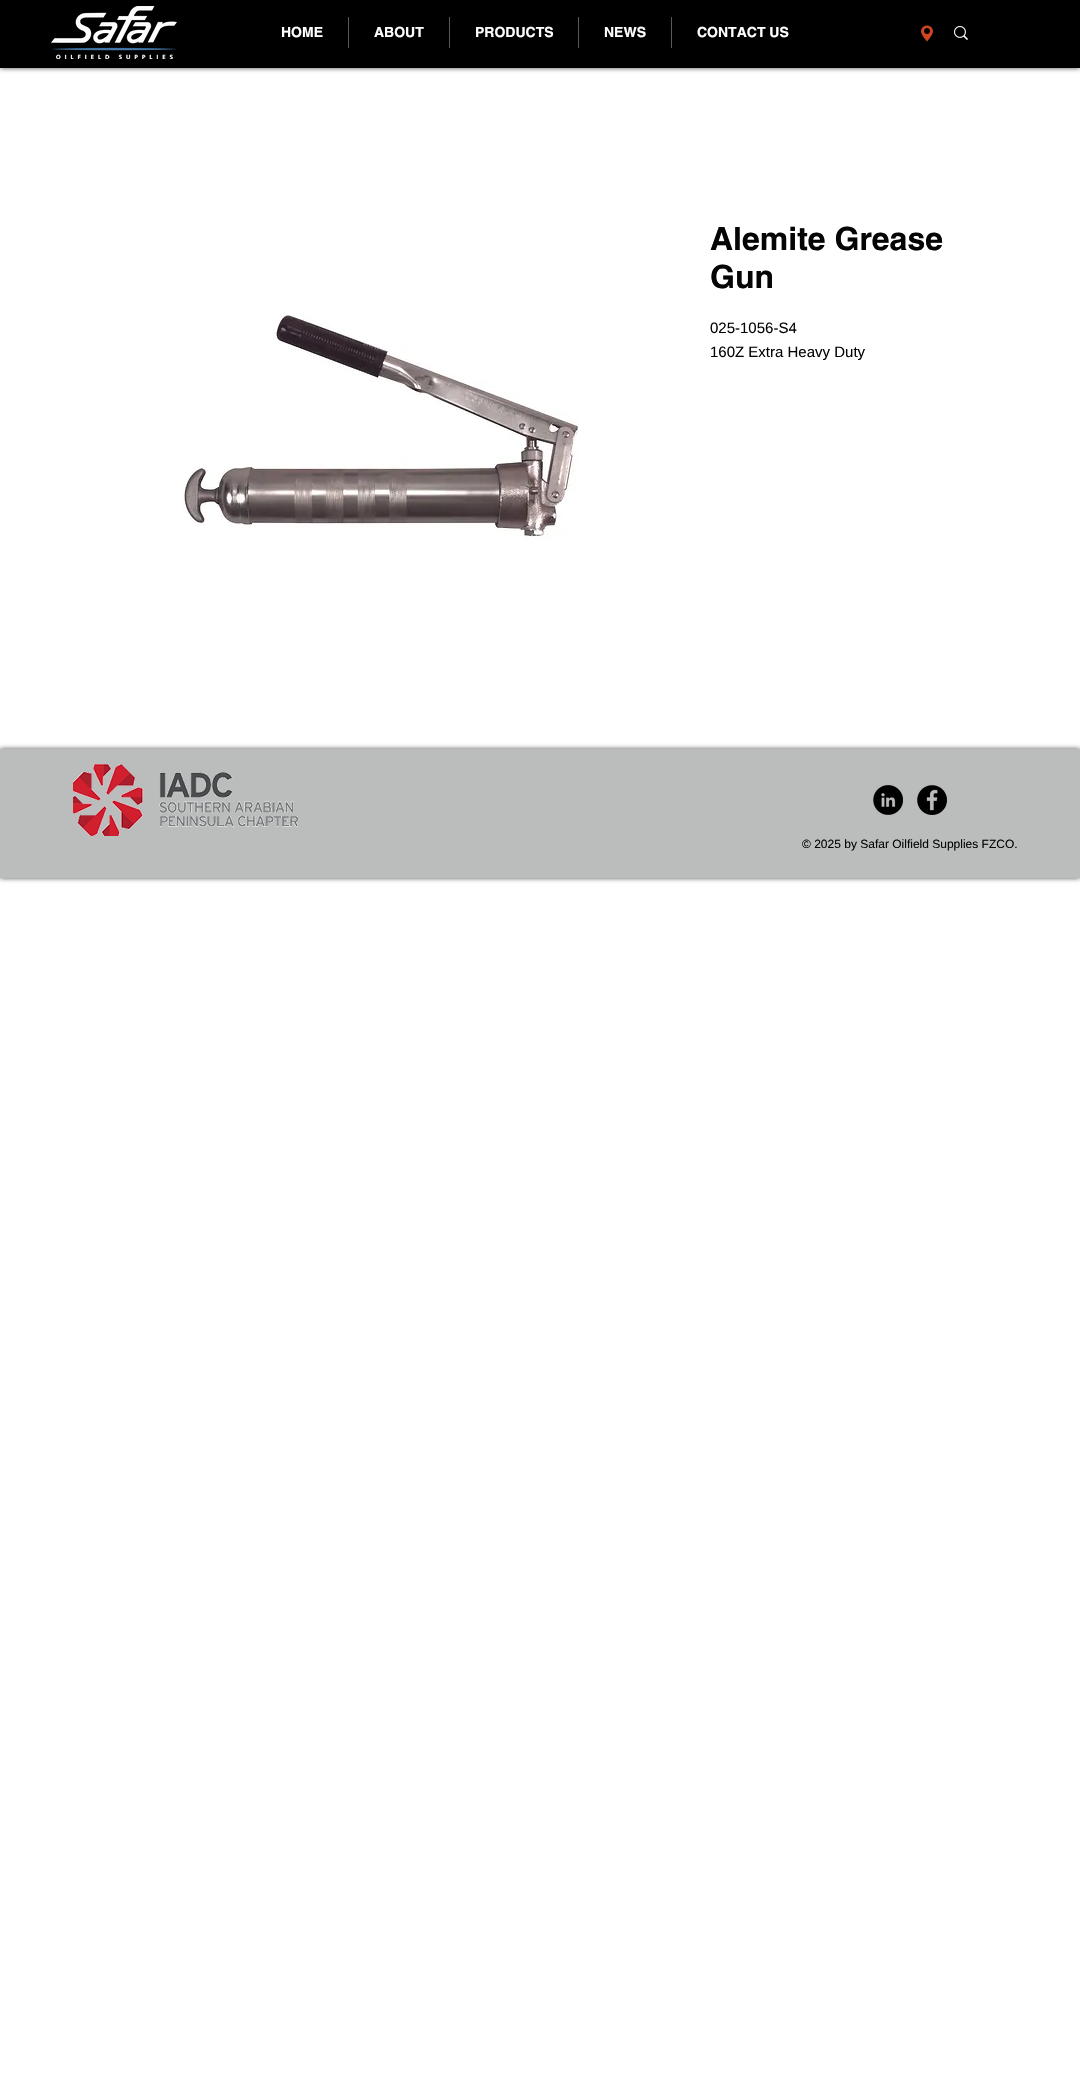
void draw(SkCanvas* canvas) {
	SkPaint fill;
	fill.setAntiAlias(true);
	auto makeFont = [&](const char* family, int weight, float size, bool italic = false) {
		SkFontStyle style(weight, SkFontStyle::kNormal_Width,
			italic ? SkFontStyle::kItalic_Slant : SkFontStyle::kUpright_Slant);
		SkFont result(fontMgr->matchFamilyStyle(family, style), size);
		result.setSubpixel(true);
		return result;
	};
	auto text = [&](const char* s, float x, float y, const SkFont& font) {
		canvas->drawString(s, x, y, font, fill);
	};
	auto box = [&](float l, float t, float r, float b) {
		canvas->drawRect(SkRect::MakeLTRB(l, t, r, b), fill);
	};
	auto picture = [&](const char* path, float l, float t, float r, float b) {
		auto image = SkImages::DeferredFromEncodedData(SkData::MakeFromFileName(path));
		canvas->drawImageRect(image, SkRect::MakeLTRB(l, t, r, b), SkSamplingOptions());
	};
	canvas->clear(0xFFFFFFFF);
	fill.setColor(0xB3000000);
	fill.setMaskFilter(SkMaskFilter::MakeBlur(kNormal_SkBlurStyle, 2.5f));
	canvas->drawRect(SkRect::MakeLTRB(0, 0, 1080, 68), fill);
	fill.setMaskFilter(nullptr);
	fill.setColor(0xFF000000);
	box(0, 0, 1080, 68);
	picture("image0.png", 51, 6, 177, 59);
	fill.setColor(0xFF595959);
	box(348, 17, 349, 48);
	box(449, 17, 450, 48);
	box(578, 17, 579, 48);
	box(671, 17, 672, 48);
	picture("image1.png", 921, 25, 933, 42);
	picture("image2.png", 954, 26, 968, 40);
	picture("image3.png", 182, 315, 579, 539);
	fill.setColor(0xB3000000);
	fill.setMaskFilter(SkMaskFilter::MakeBlur(kNormal_SkBlurStyle, 2.5f));
	canvas->drawRect(SkRect::MakeLTRB(0, 749, 1080, 878), fill);
	fill.setMaskFilter(nullptr);
	fill.setColor(0xFFBBBCBC);
	box(0, 749, 1080, 878);
	picture("image4.png", 73, 764, 298, 836);
	picture("image5.png", 873, 785, 903, 815);
	picture("image6.png", 917, 785, 947, 815);
	auto font1 = makeFont("helvetica", 700, 14);
	fill.setColor(0xFFFFFFFF);
	text("HOME", 281, 37, font1);
	text("ABOUT", 374, 37, font1);
	text("PRODUCTS", 475, 37, font1);
	text("NEWS", 604, 37, font1);
	text("CONTACT US", 697, 37, font1);
	auto font2 = makeFont("helvetica", 700, 32);
	fill.setColor(0xFF050505);
	text("Alemite Grease", 710, 250, font2);
	text("Gun", 710, 288, font2);
	auto font3 = makeFont("Liberation Sans", 400, 15);
	text("025-1056-S4", 710, 333, font3);
	text("160Z Extra Heavy Duty", 710, 357, font3);
	auto font4 = makeFont("Liberation Sans", 400, 12);
	text("© 2025 by Safar Oilfield Supplies FZCO.", 802, 848, font4);
}
